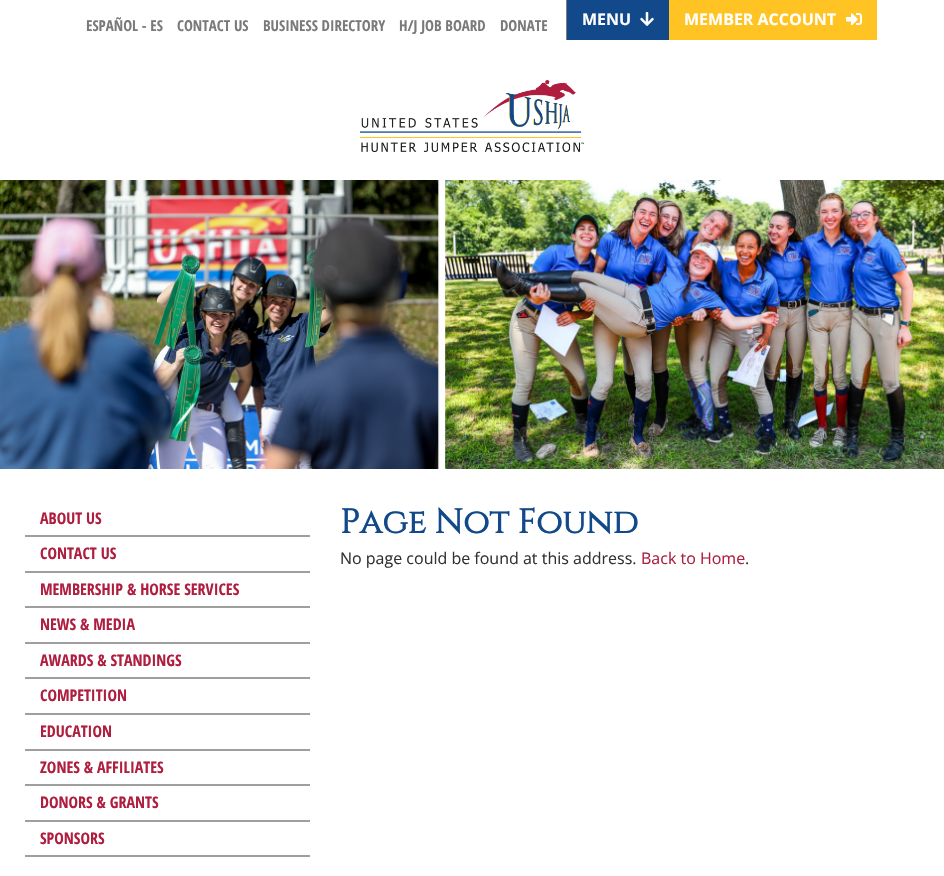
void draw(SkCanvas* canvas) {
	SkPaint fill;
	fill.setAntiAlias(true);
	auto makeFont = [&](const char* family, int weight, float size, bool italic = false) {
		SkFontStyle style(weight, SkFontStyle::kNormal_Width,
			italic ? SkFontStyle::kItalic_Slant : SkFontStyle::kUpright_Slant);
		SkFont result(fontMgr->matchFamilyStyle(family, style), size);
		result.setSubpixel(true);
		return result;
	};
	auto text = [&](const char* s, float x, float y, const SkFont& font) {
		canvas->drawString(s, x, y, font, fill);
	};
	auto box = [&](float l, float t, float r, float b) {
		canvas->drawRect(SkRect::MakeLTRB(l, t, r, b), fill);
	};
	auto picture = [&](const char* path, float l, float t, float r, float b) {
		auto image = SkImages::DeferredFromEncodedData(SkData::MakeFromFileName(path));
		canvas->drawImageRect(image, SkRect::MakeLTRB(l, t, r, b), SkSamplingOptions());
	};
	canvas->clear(0xFFFFFFFF);
	fill.setColor(0xFF808080);
	box(566, 0, 567, 40);
	fill.setColor(0xFF12498A);
	box(567, 0, 669, 40);
	picture("image0.png", 640, 12, 654, 26);
	fill.setColor(0xFFFFC423);
	box(669, 0, 877, 40);
	picture("image1.png", 846, 13, 862, 26);
	picture("image2.png", 360, 80, 584, 152);
	picture("image3.png", 0, 180, 944, 469);
	fill.setColor(0xFFA09F9F);
	box(25, 535, 310, 537);
	box(25, 571, 310, 573);
	box(25, 606, 310, 608);
	box(25, 642, 310, 644);
	box(25, 677, 310, 679);
	box(25, 713, 310, 715);
	box(25, 749, 310, 751);
	box(25, 784, 310, 786);
	box(25, 820, 310, 822);
	box(25, 855, 310, 857);
	auto font1 = makeFont("Open Sans Condensed", 700, 15);
	fill.setColor(0xFF7A7A7A);
	text("ESPAÑOL - ES", 86, 31, font1);
	text("CONTACT US", 177, 31, font1);
	text("BUSINESS DIRECTORY", 263, 31, font1);
	text("H/J JOB BOARD", 399, 31, font1);
	text("DONATE", 500, 31, font1);
	auto font2 = makeFont("Open Sans", 700, 16);
	fill.setColor(0xFFFFFFFF);
	text("MENU", 582, 25, font2);
	text("MEMBER ACCOUNT", 684, 25, font2);
	auto font3 = makeFont("Open Sans Condensed", 700, 16);
	fill.setColor(0xFFB01E3F);
	text("ABOUT US", 40, 524, font3);
	text("CONTACT US", 40, 559, font3);
	text("MEMBERSHIP & HORSE SERVICES", 40, 595, font3);
	text("NEWS & MEDIA", 40, 630, font3);
	text("AWARDS & STANDINGS", 40, 666, font3);
	text("COMPETITION", 40, 701, font3);
	text("EDUCATION", 40, 737, font3);
	text("ZONES & AFFILIATES", 40, 773, font3);
	text("DONORS & GRANTS", 40, 808, font3);
	text("SPONSORS", 40, 844, font3);
	auto font4 = makeFont("Cinzel", 700, 34);
	fill.setColor(0xFF12498A);
	text("Page Not Found", 340, 533, font4);
	auto font5 = makeFont("Open Sans", 400, 16);
	fill.setColor(0xFF333333);
	text("No page could be found at this address.", 340, 564, font5);
	fill.setColor(0xFFB01E3F);
	text("Back to Home", 641, 564, font5);
	fill.setColor(0xFF333333);
	text(".", 745, 564, font5);
}
